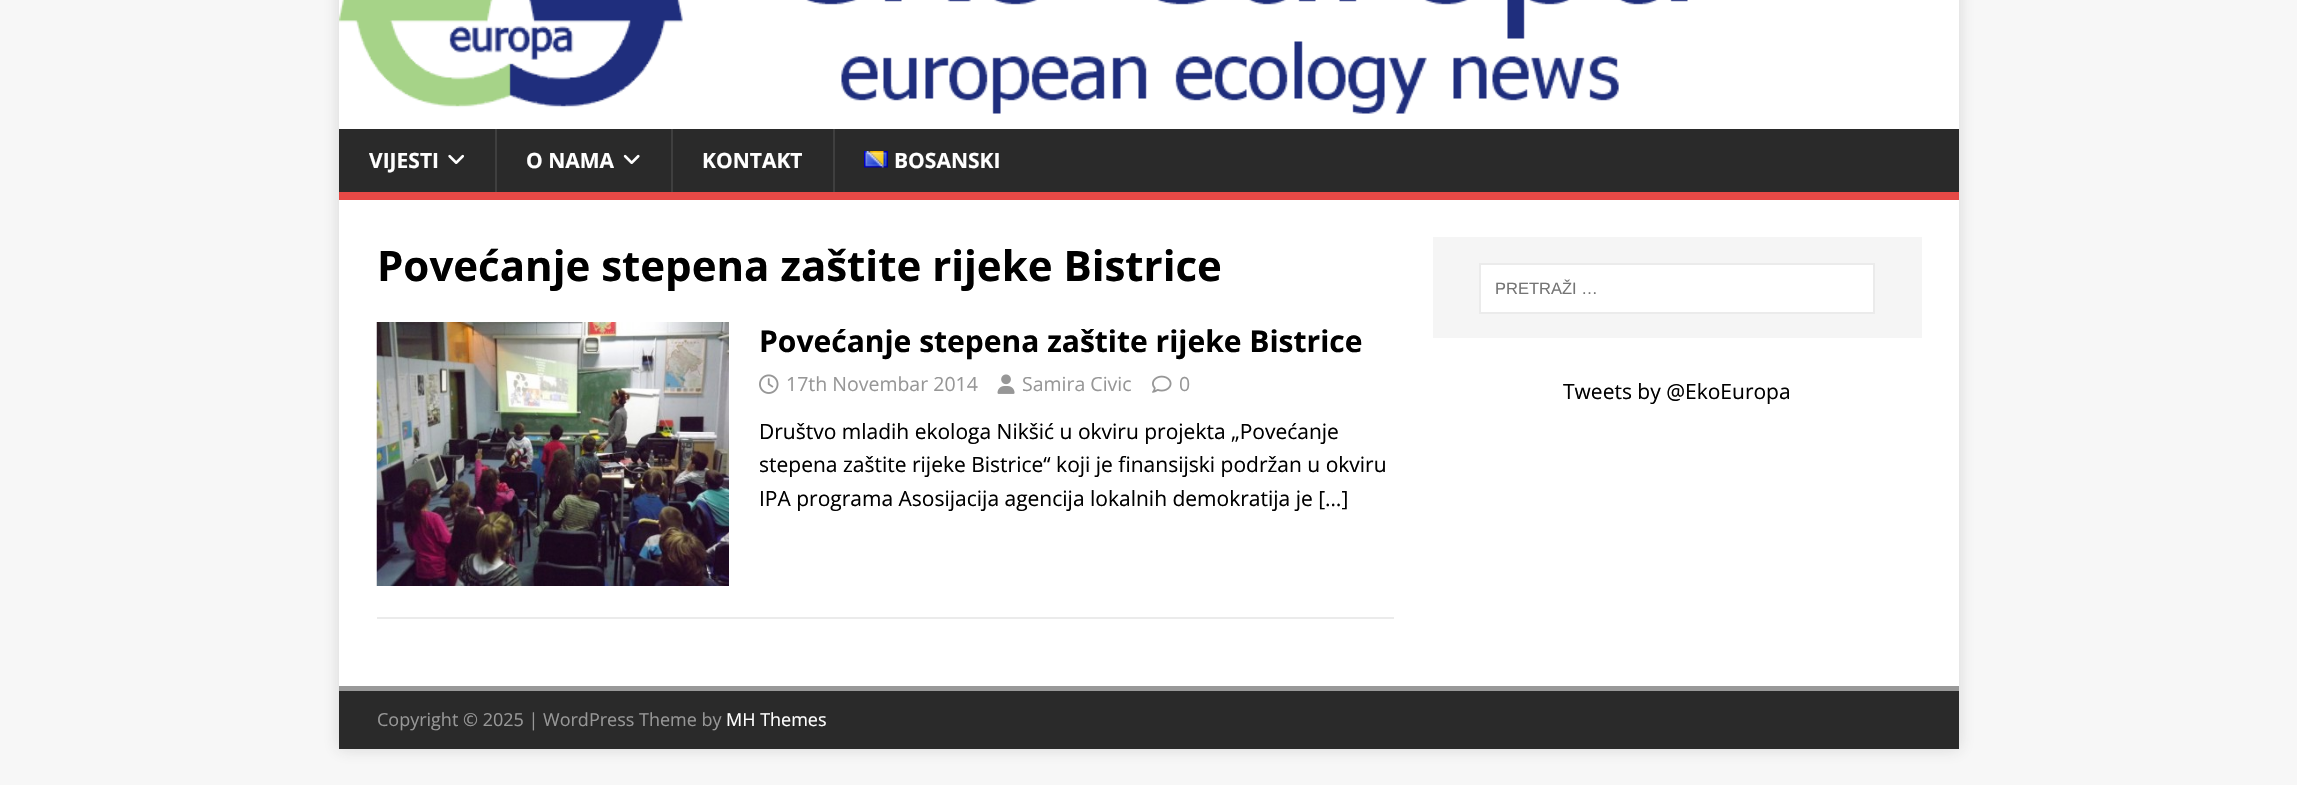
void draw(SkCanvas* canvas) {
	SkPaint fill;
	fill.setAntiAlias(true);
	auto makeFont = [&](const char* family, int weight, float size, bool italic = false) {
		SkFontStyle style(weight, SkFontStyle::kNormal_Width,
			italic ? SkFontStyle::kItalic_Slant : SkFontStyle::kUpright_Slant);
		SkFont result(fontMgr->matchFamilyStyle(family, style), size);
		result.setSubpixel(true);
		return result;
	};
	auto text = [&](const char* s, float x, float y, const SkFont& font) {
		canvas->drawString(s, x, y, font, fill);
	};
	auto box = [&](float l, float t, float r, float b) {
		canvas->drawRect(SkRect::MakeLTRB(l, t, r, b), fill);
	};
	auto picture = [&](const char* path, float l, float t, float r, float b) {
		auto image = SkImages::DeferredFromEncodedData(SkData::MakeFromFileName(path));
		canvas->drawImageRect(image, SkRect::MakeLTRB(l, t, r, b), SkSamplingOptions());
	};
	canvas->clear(0xFFF7F7F7);
	fill.setColor(0x2B323232);
	fill.setMaskFilter(SkMaskFilter::MakeBlur(kNormal_SkBlurStyle, 7.5f));
	canvas->drawRect(SkRect::MakeLTRB(339, -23, 1959, 749), fill);
	fill.setMaskFilter(nullptr);
	fill.setColor(0xFFFFFFFF);
	box(339, 0, 1959, 129);
	picture("image0.png", 339, 0, 1688, 114);
	fill.setColor(0xFF2A2A2A);
	box(339, 129, 1959, 192);
	fill.setColor(0xFFE64946);
	box(339, 192, 1959, 200);
	picture("image1.png", 448, 154, 464, 164);
	fill.setColor(0xFF3F3F3F);
	box(495, 129, 497, 192);
	picture("image2.png", 623, 154, 640, 164);
	box(671, 129, 673, 192);
	box(833, 129, 835, 192);
	picture("image3.png", 864, 151, 888, 168);
	fill.setColor(0xFFFFFFFF);
	box(339, 200, 1959, 686);
	fill.setColor(0xFFEBEBEB);
	box(377, 617, 1394, 619);
	picture("image4.png", 376, 322, 729, 586);
	picture("image5.png", 759, 374, 779, 394);
	picture("image6.png", 997, 374, 1015, 394);
	picture("image7.png", 1152, 375, 1172, 393);
	fill.setColor(0xFFF5F5F5);
	box(1433, 237, 1922, 338);
	fill.setColor(0xFFFFFFFF);
	canvas->drawRect(SkRect::MakeLTRB(1480, 264, 1874, 313), fill);
	fill.setStyle(SkPaint::kStroke_Style);
	fill.setStrokeWidth(2);
	fill.setColor(0xFFEBEBEB);
	canvas->drawRect(SkRect::MakeLTRB(1480, 264, 1874, 313), fill);
	fill.setStyle(SkPaint::kFill_Style);
	fill.setColor(0xFF2A2A2A);
	box(339, 691, 1959, 749);
	fill.setColor(0xFF999999);
	box(339, 686, 1959, 691);
	auto font1 = makeFont("Open Sans", 700, 21);
	fill.setColor(0xFFFFFFFF);
	text("VIJESTI", 369, 168, font1);
	text("O NAMA", 526, 168, font1);
	text("KONTAKT", 702, 168, font1);
	text("BOSANSKI", 894, 168, font1);
	auto font2 = makeFont("Open Sans", 700, 42);
	fill.setColor(0xFF000000);
	text("Povećanje stepena zaštite rijeke Bistrice", 377, 281, font2);
	auto font3 = makeFont("Open Sans", 700, 30);
	text("Povećanje stepena zaštite rijeke Bistrice", 759, 352, font3);
	auto font4 = makeFont("Open Sans", 400, 19.5f);
	fill.setColor(0xFF979797);
	text("17th Novembar 2014", 786, 391, font4);
	text("Samira Civic", 1022, 391, font4);
	text("0", 1179, 391, font4);
	auto font5 = makeFont("Open Sans", 400, 21);
	fill.setColor(0xFF000000);
	text("Društvo mladih ekologa Nikšić u okviru projekta „Povećanje", 759, 439, font5);
	text("stepena zaštite rijeke Bistrice“ koji je finansijski podržan u okviru", 759, 472, font5);
	text("IPA programa Asosijacija agencija lokalnih demokratija je […]", 759, 506, font5);
	auto font6 = makeFont("Liberation Sans", 400, 16.5f);
	fill.setColor(0xFF757575);
	text("PRETRAŽI …", 1495, 294, font6);
	fill.setColor(0xFF000000);
	text("Tweets by @EkoEuropa", 1563, 399, font5);
	auto font7 = makeFont("Open Sans", 400, 18);
	fill.setColor(0xFF979797);
	text("Copyright © 2025 | WordPress Theme by", 377, 726, font7);
	fill.setColor(0xFFFFFFFF);
	text("MH Themes", 726, 726, font7);
}
